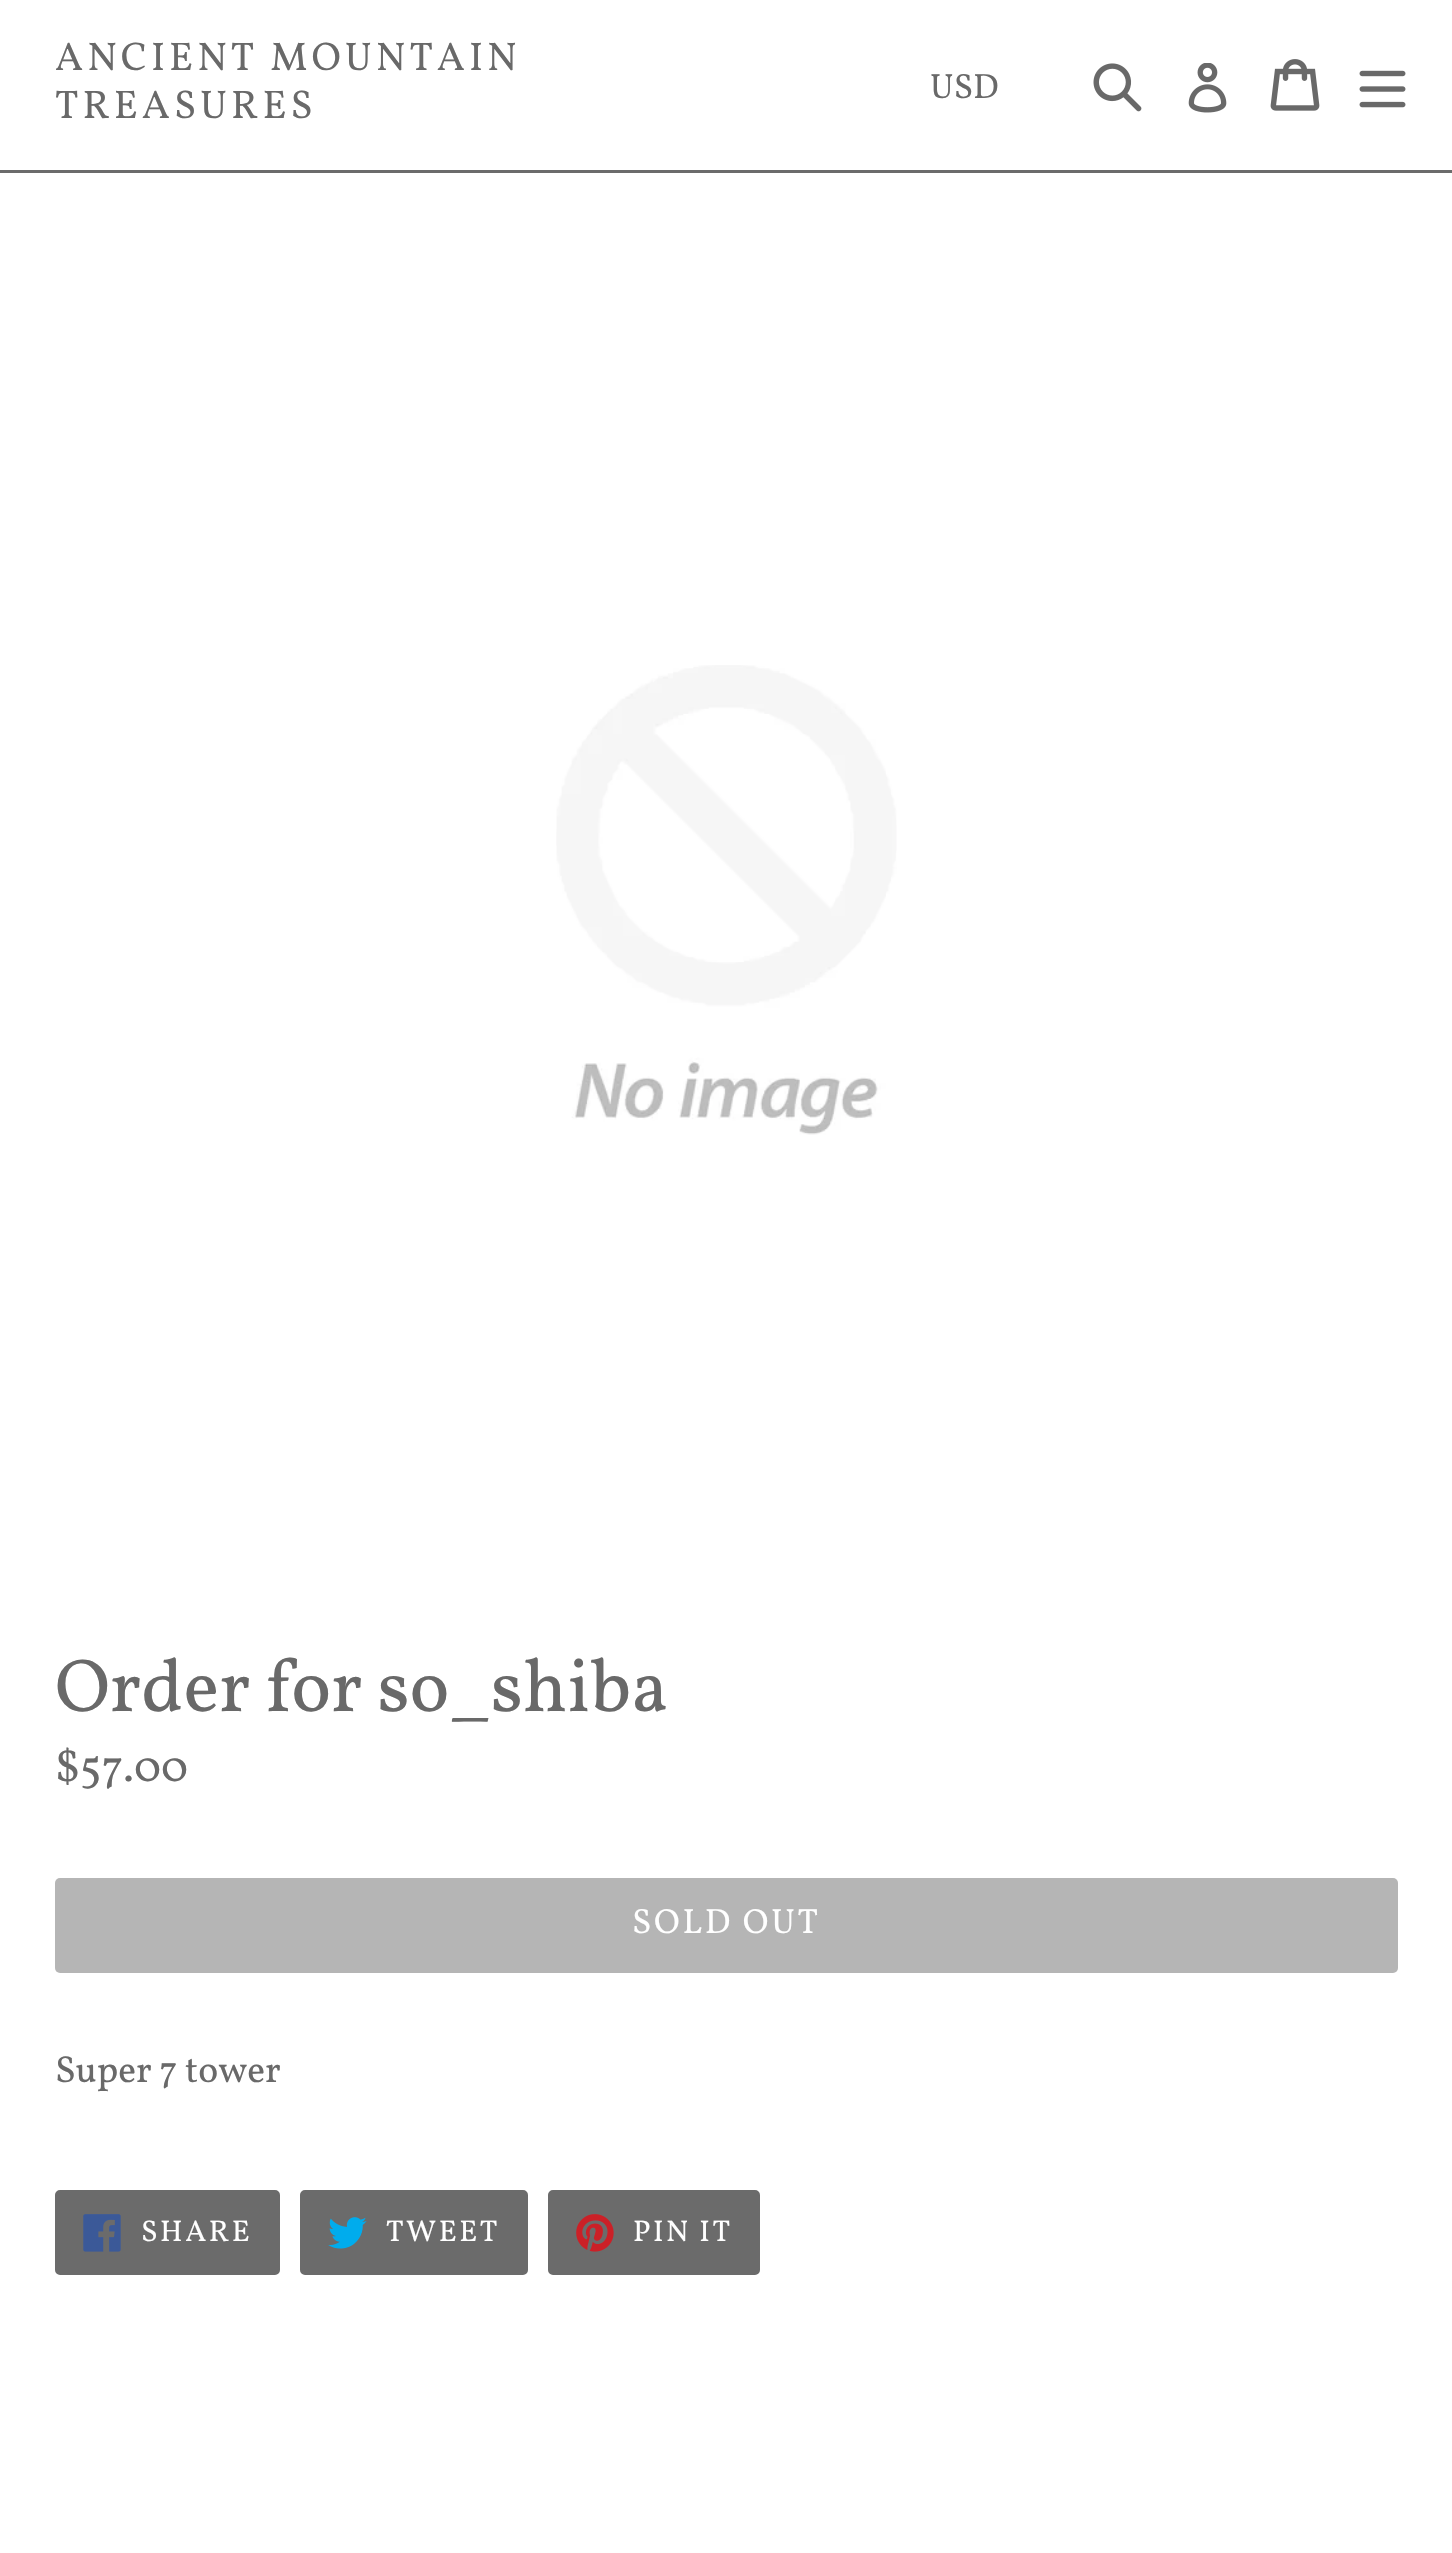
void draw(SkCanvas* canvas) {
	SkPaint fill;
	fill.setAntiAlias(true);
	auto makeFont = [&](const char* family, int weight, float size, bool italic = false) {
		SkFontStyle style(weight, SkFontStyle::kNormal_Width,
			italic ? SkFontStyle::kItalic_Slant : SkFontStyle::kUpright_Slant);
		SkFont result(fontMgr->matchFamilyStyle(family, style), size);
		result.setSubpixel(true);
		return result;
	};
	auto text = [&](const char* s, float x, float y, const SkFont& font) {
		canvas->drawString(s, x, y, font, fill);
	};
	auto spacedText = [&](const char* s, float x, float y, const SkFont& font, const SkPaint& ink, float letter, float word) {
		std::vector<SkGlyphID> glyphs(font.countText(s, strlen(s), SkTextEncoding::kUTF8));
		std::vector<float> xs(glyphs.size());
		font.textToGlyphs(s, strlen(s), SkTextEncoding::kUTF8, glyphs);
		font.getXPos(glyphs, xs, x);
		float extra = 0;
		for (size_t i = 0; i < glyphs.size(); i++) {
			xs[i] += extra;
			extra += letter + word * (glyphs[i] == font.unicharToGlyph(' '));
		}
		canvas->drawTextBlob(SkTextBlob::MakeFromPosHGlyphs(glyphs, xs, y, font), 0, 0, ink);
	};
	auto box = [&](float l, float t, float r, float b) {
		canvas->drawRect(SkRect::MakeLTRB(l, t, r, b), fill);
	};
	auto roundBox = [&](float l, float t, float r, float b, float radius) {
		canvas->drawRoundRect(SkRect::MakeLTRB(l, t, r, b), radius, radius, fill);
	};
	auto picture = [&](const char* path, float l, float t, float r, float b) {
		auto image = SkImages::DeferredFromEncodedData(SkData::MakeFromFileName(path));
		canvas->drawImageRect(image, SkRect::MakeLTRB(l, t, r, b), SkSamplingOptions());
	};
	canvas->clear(0xFFFFFFFF);
	fill.setColor(0xFF6B6B6B);
	box(0, 170, 1452, 173);
	picture("image0.png", 1093, 63, 1142, 112);
	picture("image1.png", 1188, 63, 1227, 113);
	picture("image2.png", 1270, 59, 1320, 111);
	picture("image3.png", 1359, 70, 1406, 108);
	picture("image4.png", 556, 665, 897, 1135);
	fill.setColor(0xFFB5B5B5);
	roundBox(55, 1878, 1398, 1973, 5);
	fill.setColor(0xFF6B6B6B);
	canvas->drawRoundRect(SkRect::MakeLTRB(56.5f, 2191.5f, 278.5f, 2273.5f), 3.5f, 3.5f, fill);
	fill.setStyle(SkPaint::kStroke_Style);
	fill.setStrokeWidth(3);
	canvas->drawRoundRect(SkRect::MakeLTRB(56.5f, 2191.5f, 278.5f, 2273.5f), 3.5f, 3.5f, fill);
	picture("image5.png", 83, 2214, 121, 2252);
	fill.setStyle(SkPaint::kFill_Style);
	canvas->drawRoundRect(SkRect::MakeLTRB(301.5f, 2191.5f, 526.5f, 2273.5f), 3.5f, 3.5f, fill);
	fill.setStyle(SkPaint::kStroke_Style);
	canvas->drawRoundRect(SkRect::MakeLTRB(301.5f, 2191.5f, 526.5f, 2273.5f), 3.5f, 3.5f, fill);
	picture("image6.png", 328, 2217, 367, 2249);
	fill.setStyle(SkPaint::kFill_Style);
	canvas->drawRoundRect(SkRect::MakeLTRB(549.5f, 2191.5f, 758.5f, 2273.5f), 3.5f, 3.5f, fill);
	fill.setStyle(SkPaint::kStroke_Style);
	canvas->drawRoundRect(SkRect::MakeLTRB(549.5f, 2191.5f, 758.5f, 2273.5f), 3.5f, 3.5f, fill);
	picture("image7.png", 576, 2214, 614, 2252);
	auto font1 = makeFont("Vollkorn", 400, 40);
	fill.setStyle(SkPaint::kFill_Style);
	fill.setColor(0xFF696969);
	spacedText("ANCIENT MOUNTAIN", 55, 70, font1, fill, 4, 0);
	spacedText("TREASURES", 55, 118, font1, fill, 4, 0);
	auto font2 = makeFont("Vollkorn", 400, 35);
	text("USD", 930, 98, font2);
	auto font3 = makeFont("Vollkorn", 400, 75);
	text("Order for so_shiba", 55, 1711, font3);
	auto font4 = makeFont("Vollkorn", 400, 45);
	text("$57.00", 55, 1781, font4);
	fill.setColor(0xFFFFFFFF);
	spacedText("SOLD OUT", 632, 1933, font2, fill, 2.75f, 0);
	auto font5 = makeFont("Vollkorn", 400, 37.5f);
	fill.setColor(0xFF696969);
	text("Super 7 tower", 55, 2082, font5);
	auto font6 = makeFont("Vollkorn", 400, 30);
	fill.setColor(0xFFFFFFFF);
	spacedText("SHARE", 141, 2241, font6, fill, 2.5f, 0);
	spacedText("TWEET", 386, 2241, font6, fill, 2.5f, 0);
	spacedText("PIN IT", 633, 2241, font6, fill, 2.5f, 0);
}
